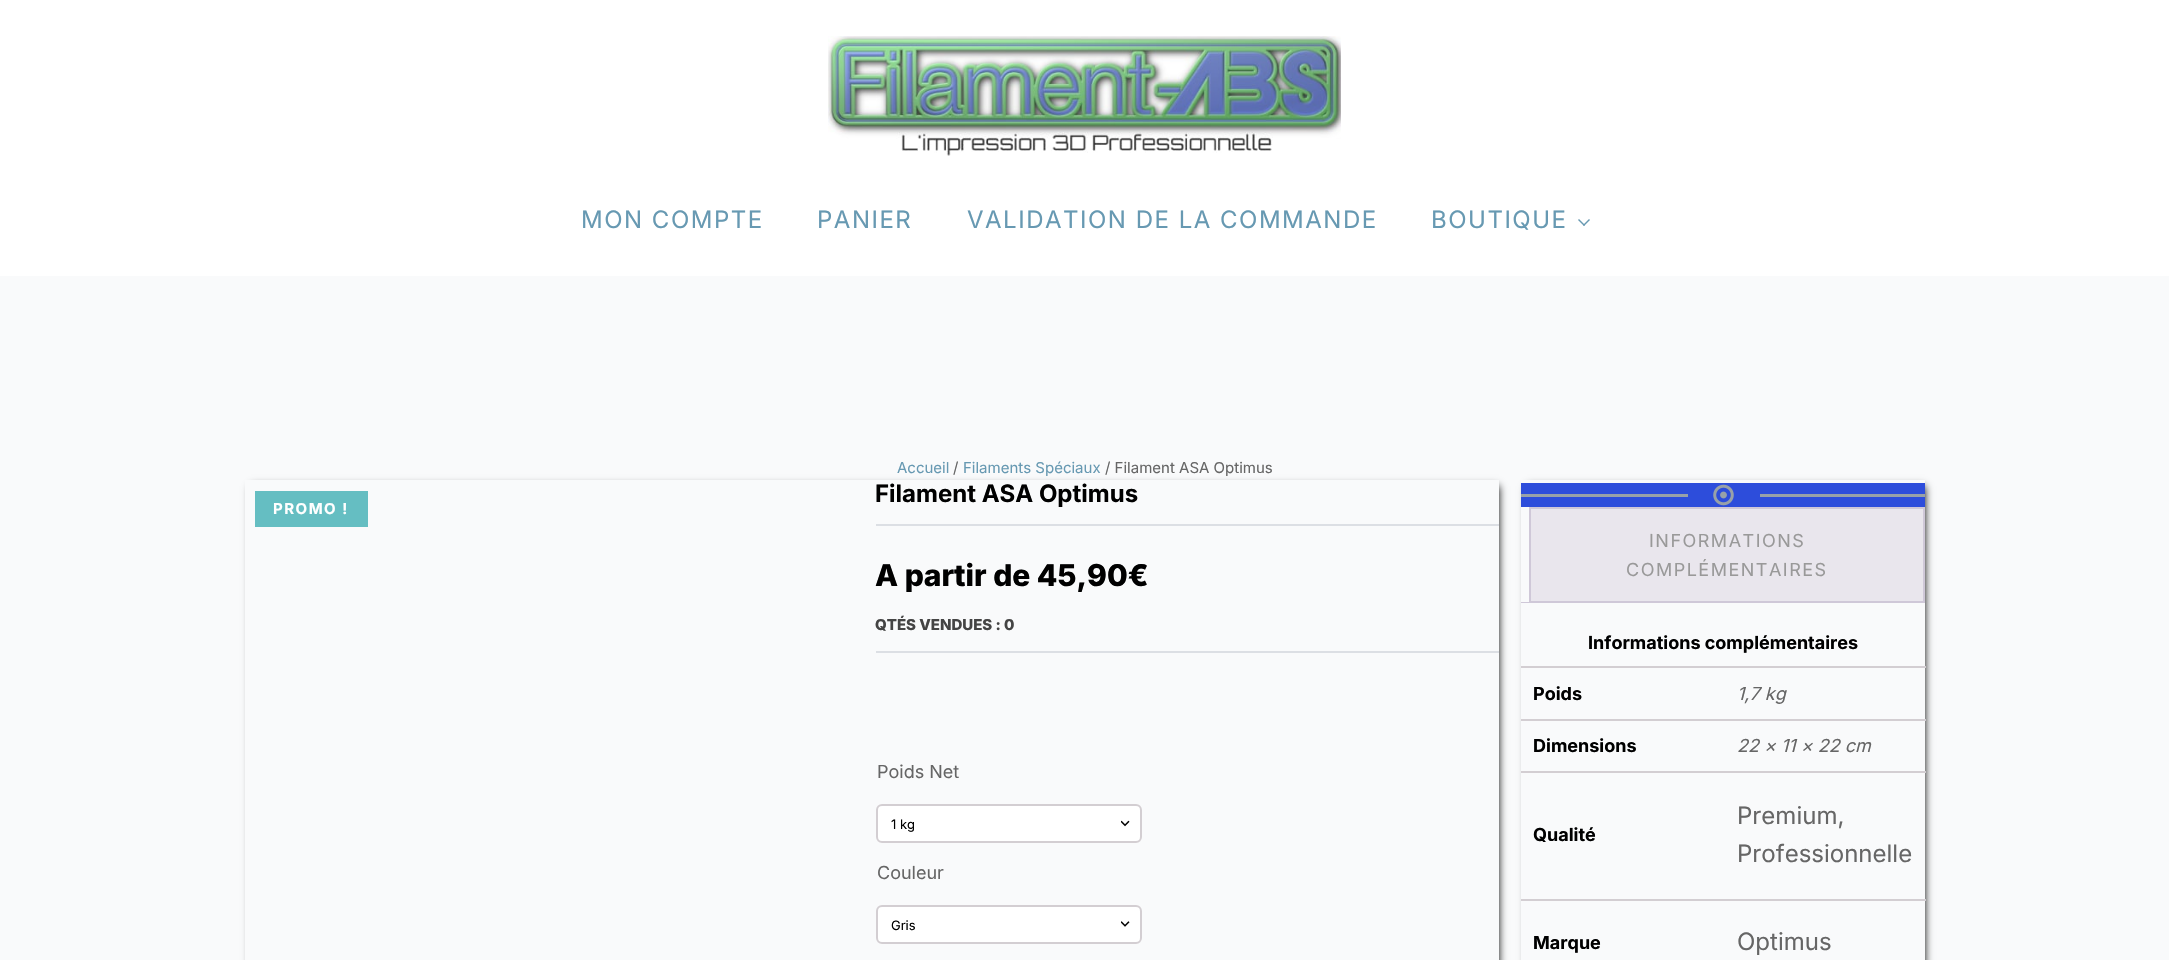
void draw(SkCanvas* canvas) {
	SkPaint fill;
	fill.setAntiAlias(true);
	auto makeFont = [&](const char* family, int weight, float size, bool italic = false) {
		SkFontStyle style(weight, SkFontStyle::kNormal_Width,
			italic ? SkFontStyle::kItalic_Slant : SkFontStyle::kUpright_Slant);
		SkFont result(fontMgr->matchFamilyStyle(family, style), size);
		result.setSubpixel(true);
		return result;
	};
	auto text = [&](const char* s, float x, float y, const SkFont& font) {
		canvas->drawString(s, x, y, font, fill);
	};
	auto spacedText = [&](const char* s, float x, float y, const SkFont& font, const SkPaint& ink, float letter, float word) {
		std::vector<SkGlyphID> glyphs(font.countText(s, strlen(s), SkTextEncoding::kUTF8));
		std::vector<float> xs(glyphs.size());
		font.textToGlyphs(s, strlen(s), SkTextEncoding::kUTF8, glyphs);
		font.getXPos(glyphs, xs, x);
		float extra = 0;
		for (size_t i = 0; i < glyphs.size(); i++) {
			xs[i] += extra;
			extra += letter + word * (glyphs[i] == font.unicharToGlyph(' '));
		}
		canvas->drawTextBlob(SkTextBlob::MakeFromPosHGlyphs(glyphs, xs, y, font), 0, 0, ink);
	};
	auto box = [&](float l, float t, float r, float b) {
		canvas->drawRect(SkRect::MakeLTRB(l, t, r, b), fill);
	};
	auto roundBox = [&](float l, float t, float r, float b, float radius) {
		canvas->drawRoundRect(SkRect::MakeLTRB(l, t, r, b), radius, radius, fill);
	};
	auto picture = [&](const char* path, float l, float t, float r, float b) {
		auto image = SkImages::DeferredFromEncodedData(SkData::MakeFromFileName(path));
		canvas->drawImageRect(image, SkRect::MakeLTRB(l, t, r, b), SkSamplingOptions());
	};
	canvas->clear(0xFFFFFFFF);
	picture("image0.png", 828, 36, 1341, 156);
	fill.setColor(0xFF6799B2);
	canvas->drawPath(SkPathBuilder().moveTo(1590, 220).lineTo(1584, 226).lineTo(1583, 225).lineTo(1589, 219).close().detach(), fill);
	canvas->drawPath(SkPathBuilder().moveTo(1585, 225).lineTo(1584, 226).lineTo(1578, 220).lineTo(1579, 219).close().detach(), fill);
	fill.setColor(0xFFF9FAFB);
	box(0, 276, 2169, 960);
	canvas->save();
	canvas->clipPath(SkPathBuilder(SkPathFillType::kEvenOdd).moveTo(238, 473).lineTo(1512, 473).lineTo(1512, 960).lineTo(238, 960).close().moveTo(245, 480).lineTo(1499, 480).lineTo(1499, 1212).lineTo(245, 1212).close().detach(), true);
	fill.setColor(0xFF050505);
	fill.setMaskFilter(SkMaskFilter::MakeBlur(kNormal_SkBlurStyle, 4));
	canvas->drawRect(SkRect::MakeLTRB(251, 486, 1499, 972), fill);
	fill.setMaskFilter(nullptr);
	canvas->restore();
	fill.setColor(0xFF65BEC2);
	box(255, 491, 368, 527);
	fill.setColor(0xFFDCDFE4);
	box(876, 524, 1499, 526);
	box(876, 651, 1499, 653);
	fill.setColor(0xFFFFFFFF);
	roundBox(876, 804, 1142, 843, 6);
	picture("image1.png", 1121, 820, 1130, 827);
	fill.setStyle(SkPaint::kStroke_Style);
	fill.setStrokeWidth(2);
	fill.setColor(0xFFD3CED2);
	canvas->drawRoundRect(SkRect::MakeLTRB(877, 805, 1141, 842), 5, 5, fill);
	fill.setStyle(SkPaint::kFill_Style);
	fill.setColor(0xFFFFFFFF);
	roundBox(876, 905, 1142, 944, 6);
	picture("image2.png", 1121, 921, 1130, 927);
	fill.setStyle(SkPaint::kStroke_Style);
	fill.setColor(0xFFD3CED2);
	canvas->drawRoundRect(SkRect::MakeLTRB(877, 906, 1141, 943), 5, 5, fill);
	canvas->save();
	canvas->clipPath(SkPathBuilder(SkPathFillType::kEvenOdd).moveTo(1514, 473).lineTo(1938, 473).lineTo(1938, 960).lineTo(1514, 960).close().moveTo(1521, 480).lineTo(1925, 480).lineTo(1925, 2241).lineTo(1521, 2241).close().detach(), true);
	fill.setStyle(SkPaint::kFill_Style);
	fill.setColor(0xFF050505);
	fill.setMaskFilter(SkMaskFilter::MakeBlur(kNormal_SkBlurStyle, 4));
	canvas->drawRect(SkRect::MakeLTRB(1527, 486, 1925, 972), fill);
	fill.setMaskFilter(nullptr);
	canvas->restore();
	fill.setColor(0xFF2D4DDB);
	box(1521, 483, 1925, 507);
	fill.setColor(0xFF98A1A8);
	box(1521, 494, 1688, 497);
	picture("image3.png", 1713, 484, 1734, 506);
	box(1760, 494, 1925, 497);
	fill.setColor(0xFFE9E6ED);
	canvas->drawRect(SkRect::MakeLTRB(1530, 508, 1924, 602), fill);
	fill.setStyle(SkPaint::kStroke_Style);
	fill.setColor(0xFFCFC8D8);
	canvas->drawRect(SkRect::MakeLTRB(1530, 508, 1924, 602), fill);
	fill.setStyle(SkPaint::kFill_Style);
	box(1521, 602, 1529, 603);
	fill.setColor(0xFFD3CED2);
	box(1521, 666, 1926, 668);
	box(1521, 719, 1926, 721);
	box(1521, 771, 1926, 773);
	box(1521, 899, 1926, 901);
	auto font1 = makeFont("Inter", 400, 24);
	fill.setColor(0xFF6799B2);
	spacedText("MON COMPTE", 581, 228, font1, fill, 1.5f, 0);
	spacedText("PANIER", 817, 228, font1, fill, 1.5f, 0);
	spacedText("VALIDATION DE LA COMMANDE", 967, 228, font1, fill, 1.5f, 0);
	spacedText("BOUTIQUE", 1431, 228, font1, fill, 1.5f, 0);
	auto font2 = makeFont("Inter", 400, 15);
	text("Accueil", 897, 473, font2);
	fill.setColor(0xFF666666);
	text("/", 953, 473, font2);
	fill.setColor(0xFF6799B2);
	text("Filaments Spéciaux", 963, 473, font2);
	fill.setColor(0xFF666666);
	text("/ Filament ASA Optimus", 1105, 473, font2);
	auto font3 = makeFont("Inter", 700, 15);
	fill.setColor(0xFFFFFFFF);
	spacedText("PROMO !", 273, 514, font3, fill, 1.5f, 0);
	auto font4 = makeFont("Inter", 700, 24);
	fill.setColor(0xFF000000);
	text("Filament ASA Optimus", 875, 502, font4);
	auto font5 = makeFont("Inter", 800, 30);
	text("A partir de 45,90€", 875, 586, font5);
	auto font6 = makeFont("Inter", 800, 15);
	fill.setColor(0xFF444444);
	text("QTÉS VENDUES : 0", 875, 630, font6);
	auto font7 = makeFont("Inter", 400, 18);
	fill.setColor(0xFF666666);
	text("Poids Net", 877, 778, font7);
	auto font8 = makeFont("Inter", 400, 13);
	fill.setColor(0xFF000000);
	text("1 kg", 891, 829, font8);
	fill.setColor(0xFF666666);
	text("Couleur", 877, 879, font7);
	fill.setColor(0xFF000000);
	text("Gris", 891, 930, font8);
	fill.setColor(0xFF999999);
	spacedText("INFORMATIONS", 1649, 547, font7, fill, 1.5f, 0);
	spacedText("COMPLÉMENTAIRES", 1626, 576, font7, fill, 1.5f, 0);
	auto font9 = makeFont("Inter", 700, 18);
	fill.setColor(0xFF000000);
	text("Informations complémentaires", 1588, 649, font9);
	text("Poids", 1533, 700, font9);
	auto font10 = makeFont("Inter", 400, 18, true);
	fill.setColor(0xFF666666);
	text("1,7 kg", 1737, 700, font10);
	fill.setColor(0xFF000000);
	text("Dimensions", 1533, 752, font9);
	fill.setColor(0xFF666666);
	text("22 × 11 × 22 cm", 1737, 752, font10);
	fill.setColor(0xFF000000);
	text("Qualité", 1533, 841, font9);
	fill.setColor(0xFF666666);
	text("Premium,", 1737, 824, font1);
	text("Professionnelle", 1737, 862, font1);
	fill.setColor(0xFF000000);
	text("Marque", 1533, 949, font9);
	fill.setColor(0xFF666666);
	text("Optimus", 1737, 950, font1);
}
